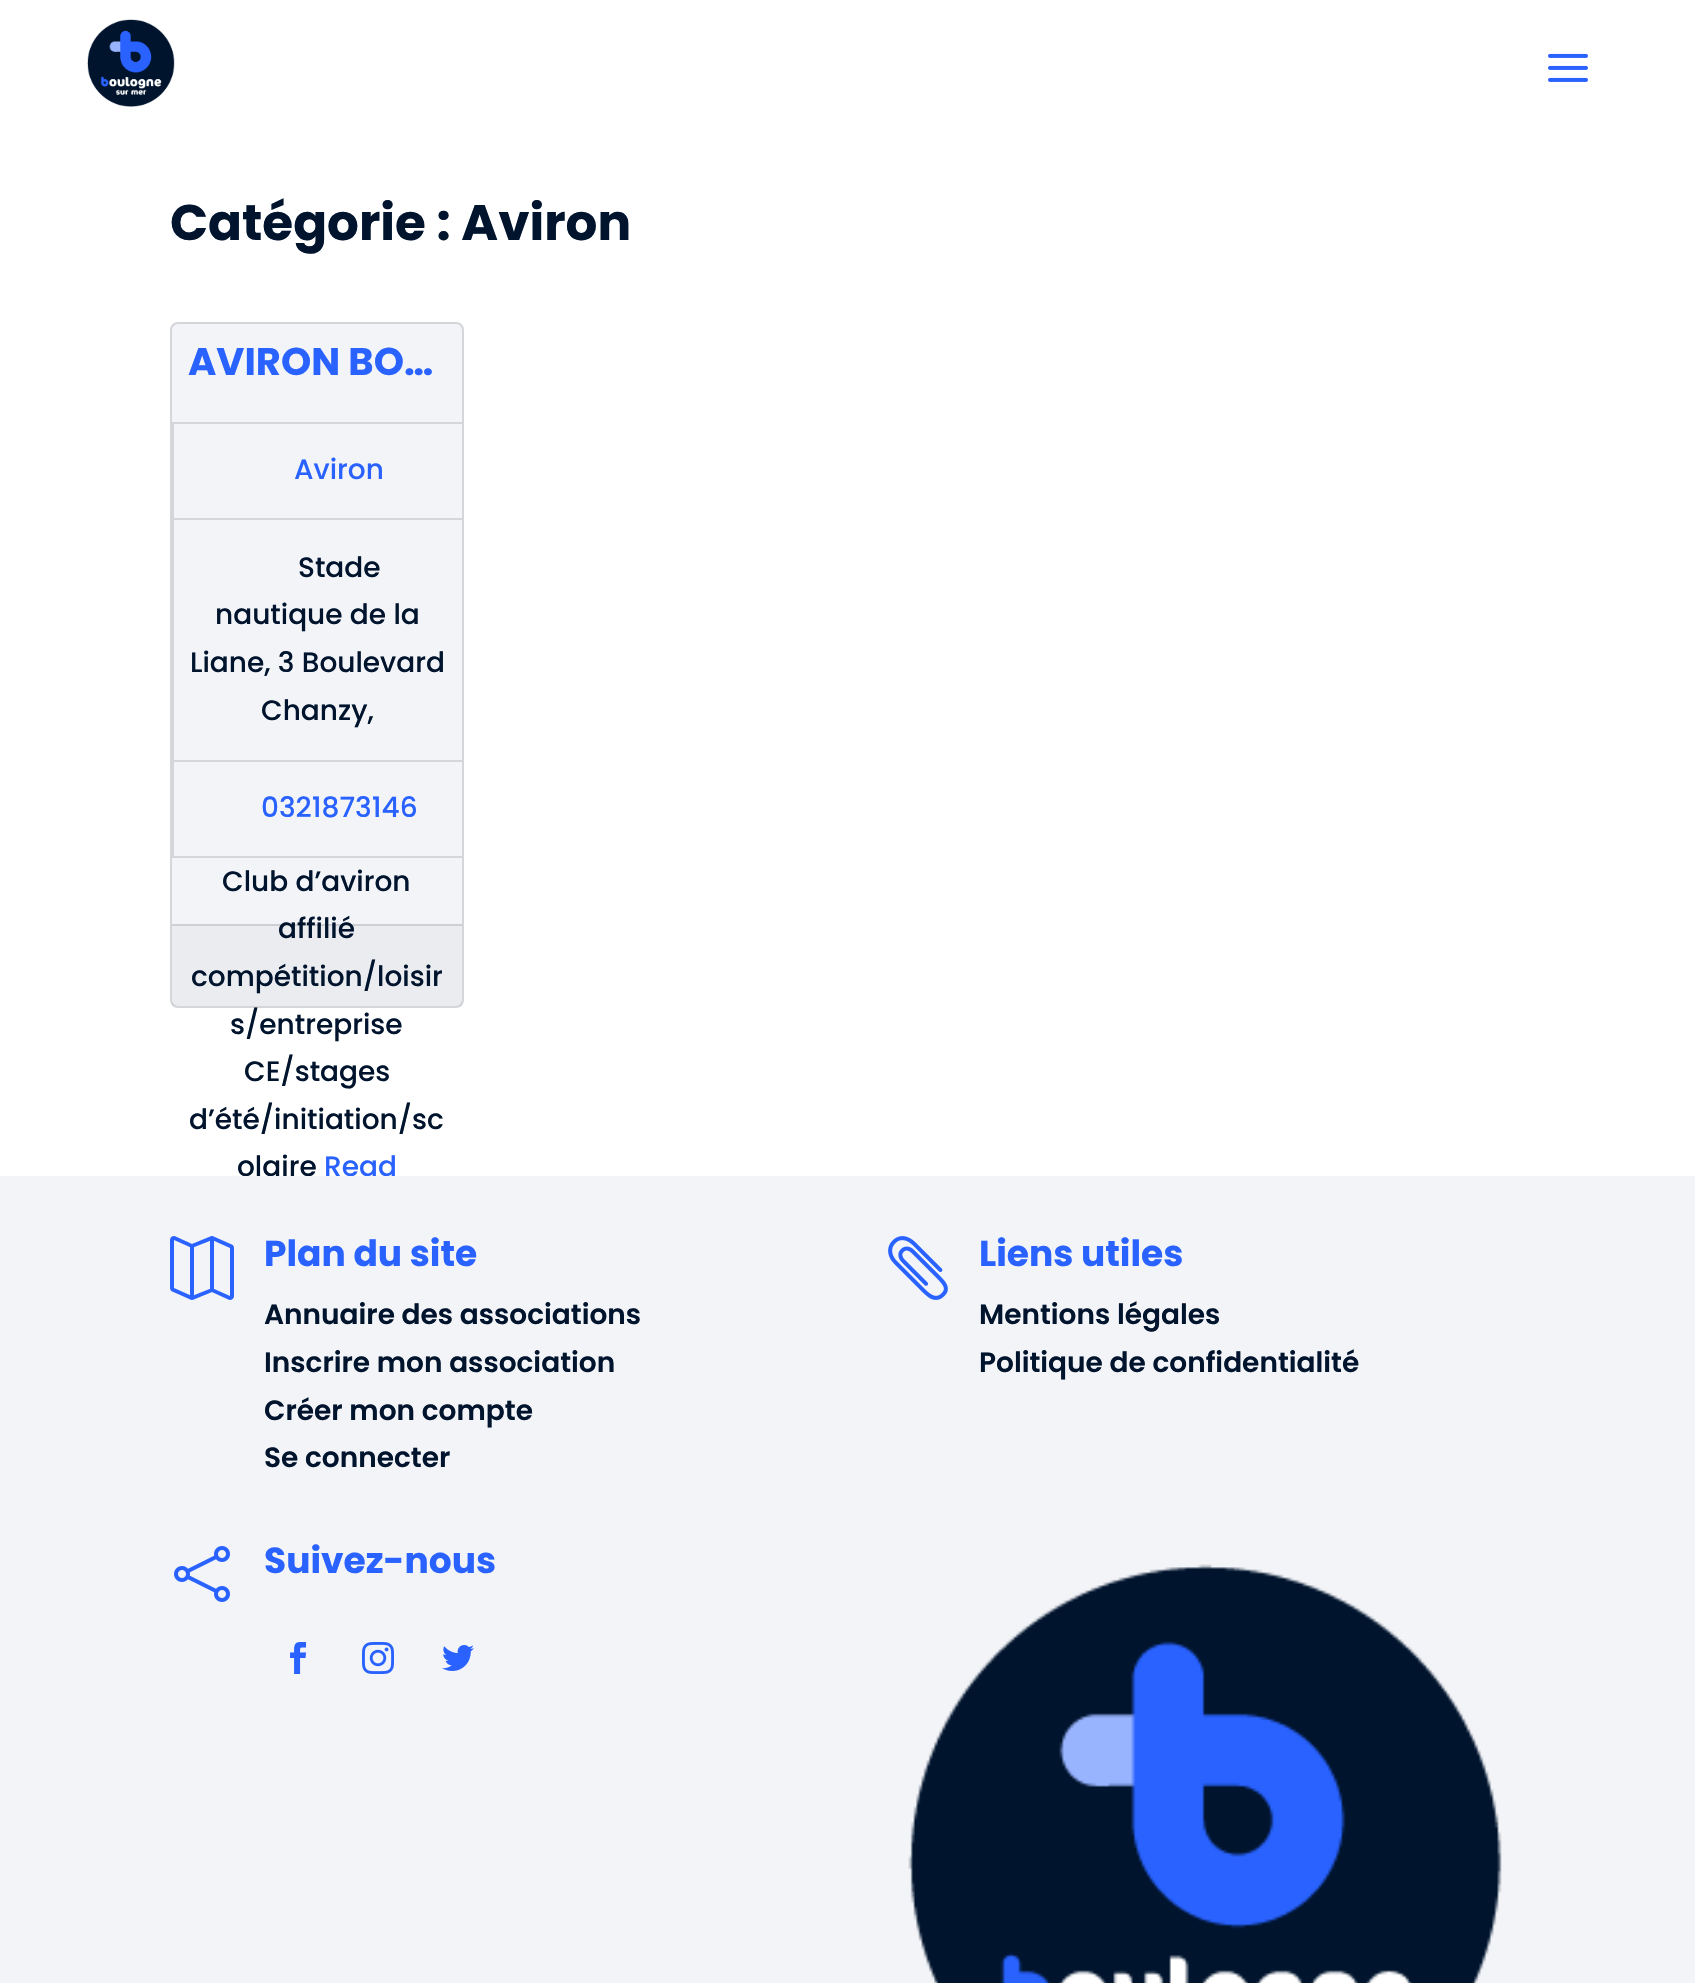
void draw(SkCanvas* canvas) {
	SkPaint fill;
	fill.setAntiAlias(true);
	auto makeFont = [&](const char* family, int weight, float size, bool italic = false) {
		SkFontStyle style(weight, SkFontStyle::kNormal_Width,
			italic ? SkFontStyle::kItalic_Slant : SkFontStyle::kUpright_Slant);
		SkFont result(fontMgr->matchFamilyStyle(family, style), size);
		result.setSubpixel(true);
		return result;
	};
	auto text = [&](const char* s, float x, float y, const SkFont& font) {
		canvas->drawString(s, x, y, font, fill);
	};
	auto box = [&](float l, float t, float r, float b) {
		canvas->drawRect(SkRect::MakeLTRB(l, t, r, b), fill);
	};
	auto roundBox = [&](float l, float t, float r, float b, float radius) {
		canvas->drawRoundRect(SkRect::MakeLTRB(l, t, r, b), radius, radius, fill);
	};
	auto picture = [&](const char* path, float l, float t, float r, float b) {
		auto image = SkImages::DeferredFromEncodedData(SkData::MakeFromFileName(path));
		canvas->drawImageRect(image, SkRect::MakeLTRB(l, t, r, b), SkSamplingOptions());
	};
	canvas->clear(0xFFFFFFFF);
	picture("image0.png", 87, 19, 175, 107);
	picture("image1.png", 1548, 53, 1588, 82);
	fill.setColor(0xFFF2F4F8);
	roundBox(170, 322, 464, 1008, 8);
	fill.setStyle(SkPaint::kStroke_Style);
	fill.setStrokeWidth(2);
	fill.setColor(0x1F000000);
	canvas->drawRoundRect(SkRect::MakeLTRB(171, 323, 463, 1007), 7, 7, fill);
	fill.setStyle(SkPaint::kFill_Style);
	fill.setColor(0xFFD4D6D9);
	canvas->drawPath(SkPathBuilder().moveTo(172, 422).lineTo(462, 422).lineTo(462, 424).lineTo(174, 424).close().detach(), fill);
	canvas->drawPath(SkPathBuilder().moveTo(462, 520).lineTo(172, 520).lineTo(174, 518).lineTo(462, 518).close().detach(), fill);
	fill.setColor(0x1F000000);
	canvas->drawPath(SkPathBuilder().moveTo(172, 520).lineTo(172, 422).lineTo(174, 424).lineTo(174, 518).close().detach(), fill);
	fill.setColor(0xFFD4D6D9);
	canvas->drawPath(SkPathBuilder().moveTo(462, 762).lineTo(172, 762).lineTo(174, 760).lineTo(462, 760).close().detach(), fill);
	fill.setColor(0x1F000000);
	canvas->drawPath(SkPathBuilder().moveTo(172, 762).lineTo(172, 520).lineTo(174, 520).lineTo(174, 760).close().detach(), fill);
	fill.setColor(0xFFD4D6D9);
	canvas->drawPath(SkPathBuilder().moveTo(462, 858).lineTo(172, 858).lineTo(174, 856).lineTo(462, 856).close().detach(), fill);
	fill.setColor(0x1F000000);
	canvas->drawPath(SkPathBuilder().moveTo(172, 858).lineTo(172, 762).lineTo(174, 762).lineTo(174, 856).close().detach(), fill);
	fill.setColor(0x08000000);
	box(172, 926, 462, 1006);
	fill.setColor(0xFFCDCFD2);
	box(172, 924, 462, 926);
	auto font1 = makeFont("Poppins", 700, 50);
	fill.setColor(0xFF00142D);
	text("Catégorie : Aviron", 170, 240, font1);
	auto font2 = makeFont("Poppins", 700, 38.5f);
	fill.setColor(0xFF2962FF);
	text("AVIRON BO…", 188, 375, font2);
	auto font3 = makeFont("Poppins", 500, 28);
	text("Aviron", 294, 479, font3);
	fill.setColor(0xFF00142D);
	text("Stade", 298, 577, font3);
	text("nautique de la", 215, 624, font3);
	text("Liane, 3 Boulevard", 190, 672, font3);
	text("Chanzy,", 261, 720, font3);
	fill.setColor(0xFF2962FF);
	text("0321873146", 261, 817, font3);
	fill.setColor(0xFF00142D);
	text("Club d’aviron", 222, 891, font3);
	text("affilié", 278, 938, font3);
	text("compétition/loisir", 191, 986, font3);
	text("s/entreprise", 230, 1034, font3);
	text("CE/stages", 244, 1081, font3);
	text("d’été/initiation/sc", 189, 1129, font3);
	text("olaire", 237, 1176, font3);
	fill.setColor(0xFF2962FF);
	text("Read", 324, 1176, font3);
	fill.setColor(0xFFF2F4F8);
	box(0, 1176, 1695, 1983);
	picture("image2.png", 170, 1236, 234, 1300);
	auto font4 = makeFont("Poppins", 700, 36);
	fill.setColor(0xFF2962FF);
	text("Plan du site", 264, 1266, font4);
	auto font5 = makeFont("Poppins", 600, 28);
	fill.setColor(0xFF00142D);
	text("Annuaire des associations", 264, 1324, font5);
	text("Inscrire mon association", 264, 1372, font5);
	text("Créer mon compte", 264, 1420, font5);
	text("Se connecter", 264, 1467, font5);
	picture("image3.png", 888, 1236, 948, 1300);
	fill.setColor(0xFF2962FF);
	text("Liens utiles", 979, 1266, font4);
	fill.setColor(0xFF00142D);
	text("Mentions légales", 979, 1324, font5);
	text("Politique de confidentialité", 979, 1372, font5);
	picture("image4.png", 174, 1546, 230, 1602);
	fill.setColor(0xFF2962FF);
	text("Suivez-nous", 264, 1573, font4);
	picture("image5.png", 290, 1642, 307, 1674);
	picture("image6.png", 362, 1642, 394, 1674);
	picture("image7.png", 442, 1645, 474, 1671);
	picture("image8.png", 908, 1564, 1502, 1983);
}
